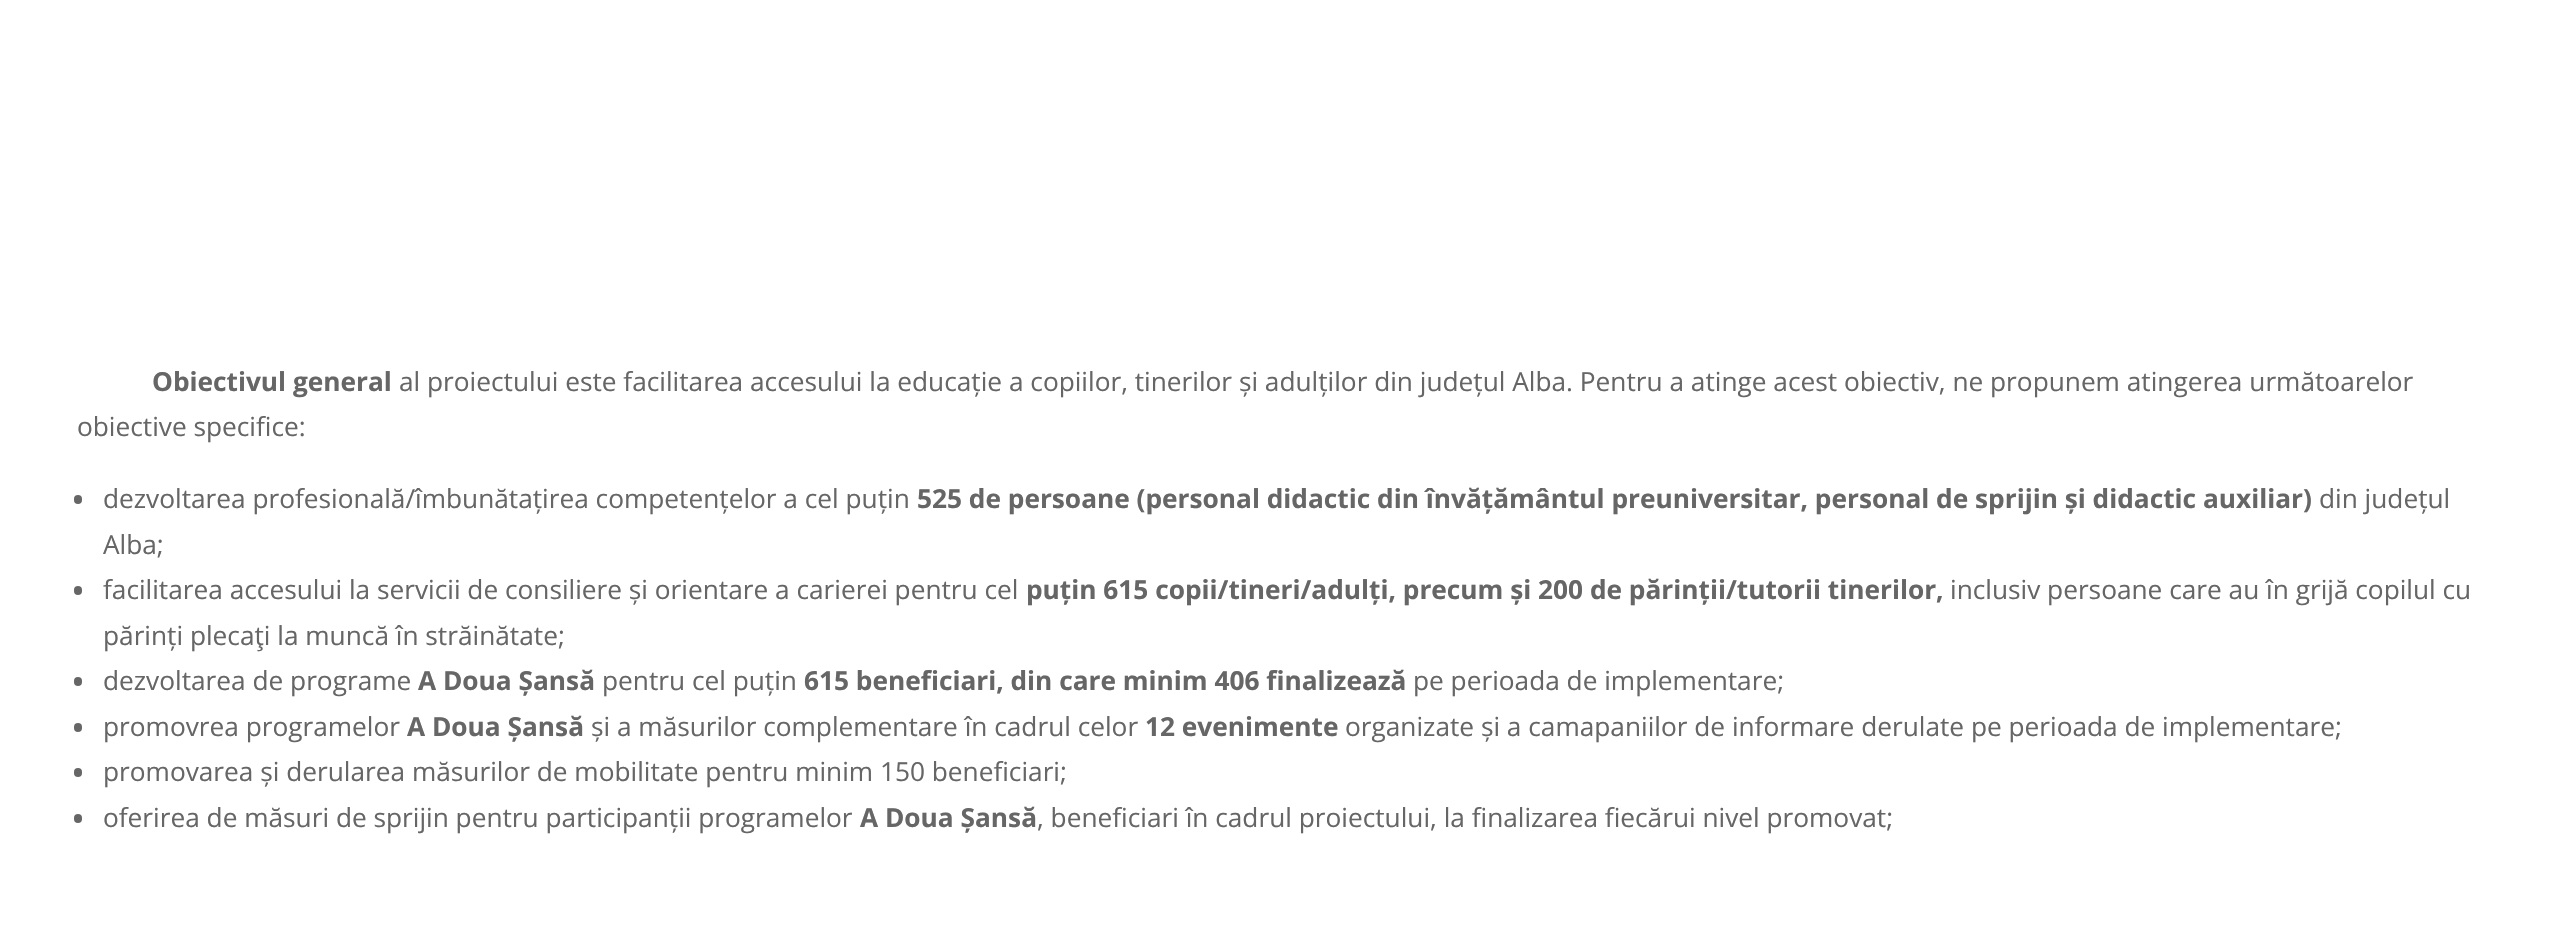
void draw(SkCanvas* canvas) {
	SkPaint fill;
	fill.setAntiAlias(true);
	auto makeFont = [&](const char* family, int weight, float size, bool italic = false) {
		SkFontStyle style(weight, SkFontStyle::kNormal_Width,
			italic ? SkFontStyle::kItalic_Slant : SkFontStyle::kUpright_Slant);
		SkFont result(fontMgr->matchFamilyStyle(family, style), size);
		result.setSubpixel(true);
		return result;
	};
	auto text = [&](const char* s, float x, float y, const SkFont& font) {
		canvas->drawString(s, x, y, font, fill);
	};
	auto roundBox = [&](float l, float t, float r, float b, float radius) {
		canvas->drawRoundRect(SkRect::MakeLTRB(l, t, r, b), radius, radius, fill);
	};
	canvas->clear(0xFFFFFFFF);
	fill.setColor(0xFF666666);
	roundBox(74, 495, 82, 504, 4);
	roundBox(74, 586, 82, 595, 4);
	roundBox(74, 677, 82, 686, 4);
	roundBox(74, 723, 82, 732, 4);
	roundBox(74, 768, 82, 777, 4);
	roundBox(74, 814, 82, 823, 4);
	auto font1 = makeFont("Open Sans", 700, 26.25f);
	text("Obiectivul general", 152, 391, font1);
	auto font2 = makeFont("Open Sans", 400, 26.25f);
	text("al proiectului este facilitarea accesului la educație a copiilor, tinerilor și adulților din județul Alba. Pentru a atinge acest obiectiv, ne propunem atingerea următoarelor", 399, 391, font2);
	text("obiective specifice:", 77, 436, font2);
	text("dezvoltarea profesională/îmbunătațirea competențelor a cel puțin", 103, 508, font2);
	text("525 de persoane (personal didactic din învățământul preuniversitar, personal de sprijin și didactic auxiliar)", 917, 508, font1);
	text("din județul", 2319, 508, font2);
	text("Alba;", 103, 554, font2);
	text("facilitarea accesului la servicii de consiliere și orientare a carierei pentru cel", 103, 599, font2);
	text("puțin 615 copii/tineri/adulți, precum și 200 de părinții/tutorii tinerilor,", 1026, 599, font1);
	text("inclusiv persoane care au în grijă copilul cu", 1950, 599, font2);
	text("părinți plecaţi la muncă în străinătate;", 103, 645, font2);
	text("dezvoltarea de programe", 103, 690, font2);
	text("A Doua Șansă", 418, 690, font1);
	text("pentru cel puțin", 602, 690, font2);
	text("615 beneficiari, din care minim 406 finalizează", 804, 690, font1);
	text("pe perioada de implementare;", 1413, 690, font2);
	text("promovrea programelor", 103, 736, font2);
	text("A Doua Șansă", 407, 736, font1);
	text("și a măsurilor complementare în cadrul celor", 591, 736, font2);
	text("12 evenimente", 1145, 736, font1);
	text("organizate și a camapaniilor de informare derulate pe perioada de implementare;", 1345, 736, font2);
	text("promovarea și derularea măsurilor de mobilitate pentru minim 150 beneficiari;", 103, 781, font2);
	text("oferirea de măsuri de sprijin pentru participanții programelor", 103, 827, font2);
	text("A Doua Șansă", 860, 827, font1);
	text(", beneficiari în cadrul proiectului, la finalizarea fiecărui nivel promovat;", 1037, 827, font2);
}
